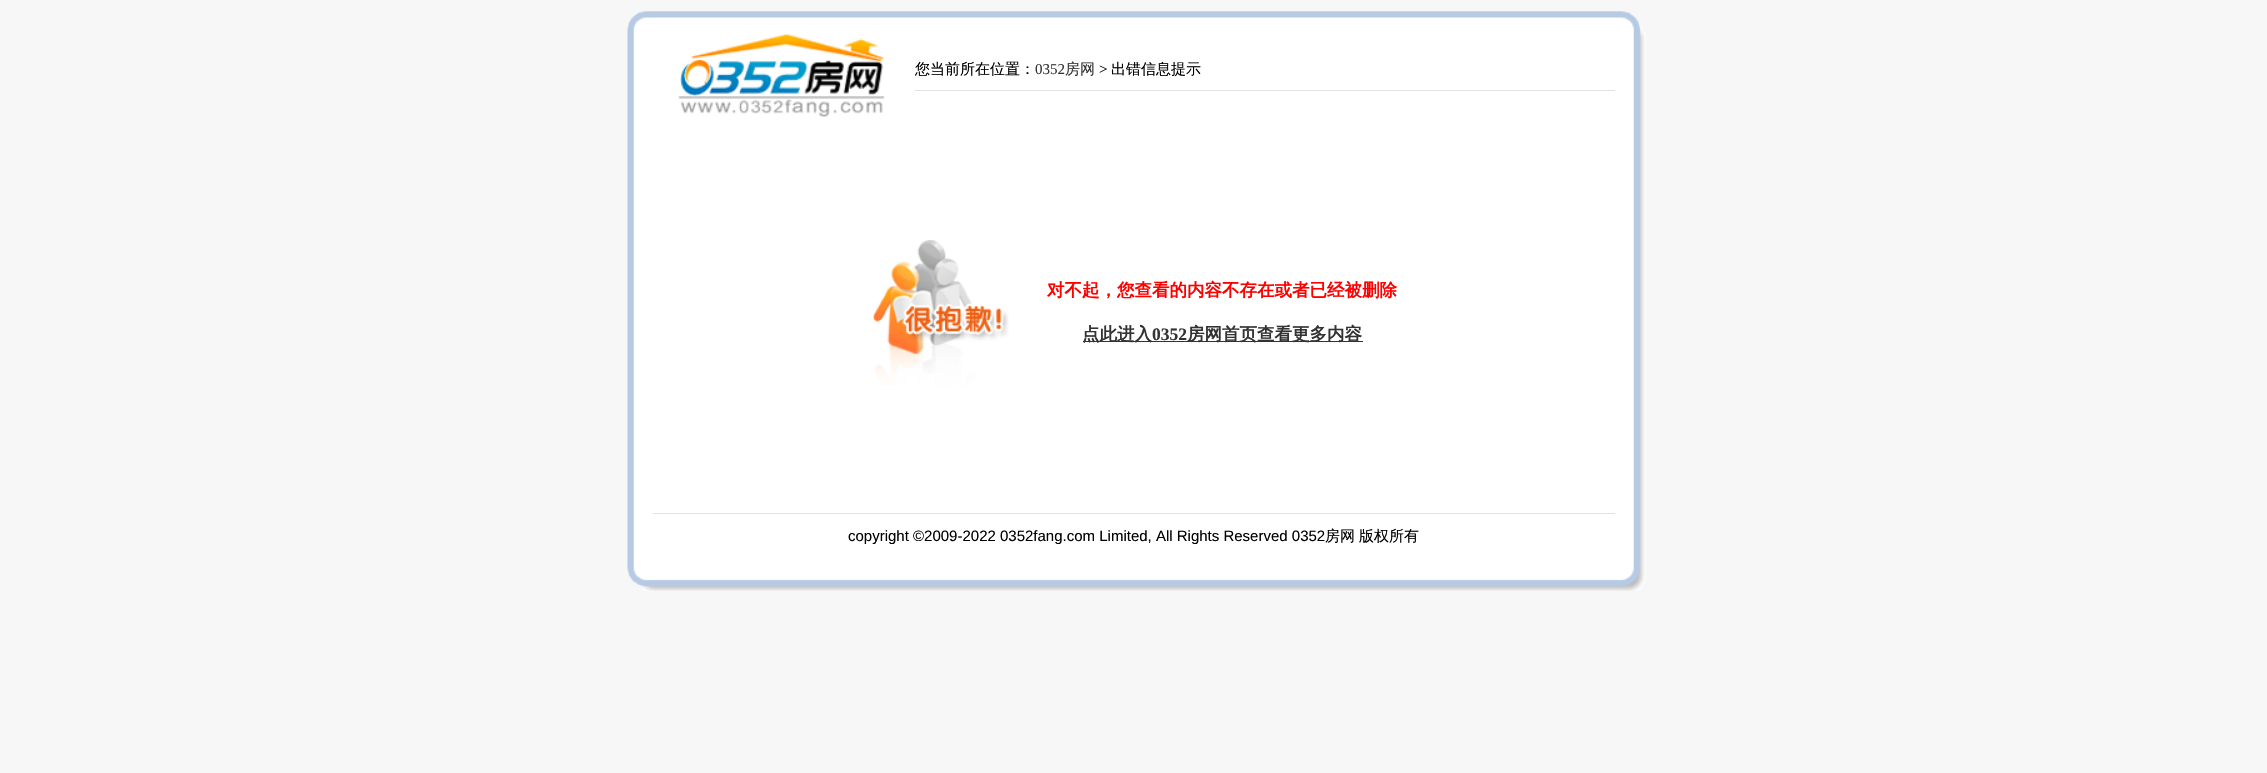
void draw(SkCanvas* canvas) {
	SkPaint fill;
	fill.setAntiAlias(true);
	auto makeFont = [&](const char* family, int weight, float size, bool italic = false) {
		SkFontStyle style(weight, SkFontStyle::kNormal_Width,
			italic ? SkFontStyle::kItalic_Slant : SkFontStyle::kUpright_Slant);
		SkFont result(fontMgr->matchFamilyStyle(family, style), size);
		result.setSubpixel(true);
		return result;
	};
	auto text = [&](const char* s, float x, float y, const SkFont& font) {
		canvas->drawString(s, x, y, font, fill);
	};
	auto box = [&](float l, float t, float r, float b) {
		canvas->drawRect(SkRect::MakeLTRB(l, t, r, b), fill);
	};
	auto picture = [&](const char* path, float l, float t, float r, float b) {
		auto image = SkImages::DeferredFromEncodedData(SkData::MakeFromFileName(path));
		canvas->drawImageRect(image, SkRect::MakeLTRB(l, t, r, b), SkSamplingOptions());
	};
	canvas->clear(0xFFF7F7F7);
	picture("image0.png", 627, 11, 1646, 591);
	picture("image1.png", 678, 33, 885, 117);
	fill.setColor(0xFFE2E2E2);
	box(915, 90, 1615, 91);
	picture("image2.png", 873, 240, 1009, 386);
	fill.setColor(0xFF333333);
	box(1083, 341, 1363, 342);
	fill.setColor(0xFFE2E2E2);
	box(653, 513, 1615, 514);
	auto font1 = makeFont("WenQuanYi Zen Hei", 500, 15);
	fill.setColor(0xFF000000);
	text("您当前所在位置：", 915, 74, font1);
	auto font2 = makeFont("Liberation Serif", 400, 15);
	fill.setColor(0xFF333333);
	text("0352", 1035, 74, font2);
	text("房网", 1065, 74, font1);
	fill.setColor(0xFF000000);
	text(">", 1099, 74, font2);
	text("出错信息提示", 1111, 74, font1);
	auto font3 = makeFont("WenQuanYi Zen Hei", 700, 17.5f);
	fill.setColor(0xFFFF0000);
	text("对不起，您查看的内容不存在或者已经被删除", 1047, 296, font3);
	fill.setColor(0xFF333333);
	text("点此进入", 1082, 340, font3);
	auto font4 = makeFont("Liberation Serif", 700, 17.5f);
	text("0352", 1152, 340, font4);
	text("房网首页查看更多内容", 1187, 340, font3);
	auto font5 = makeFont("Liberation Sans", 400, 15);
	fill.setColor(0xFF000000);
	text("copyright ©2009-2022 0352fang.com Limited, All Rights Reserved 0352", 848, 541, font5);
	text("房网", 1325, 541, font1);
	text("版权所有", 1359, 541, font1);
}
